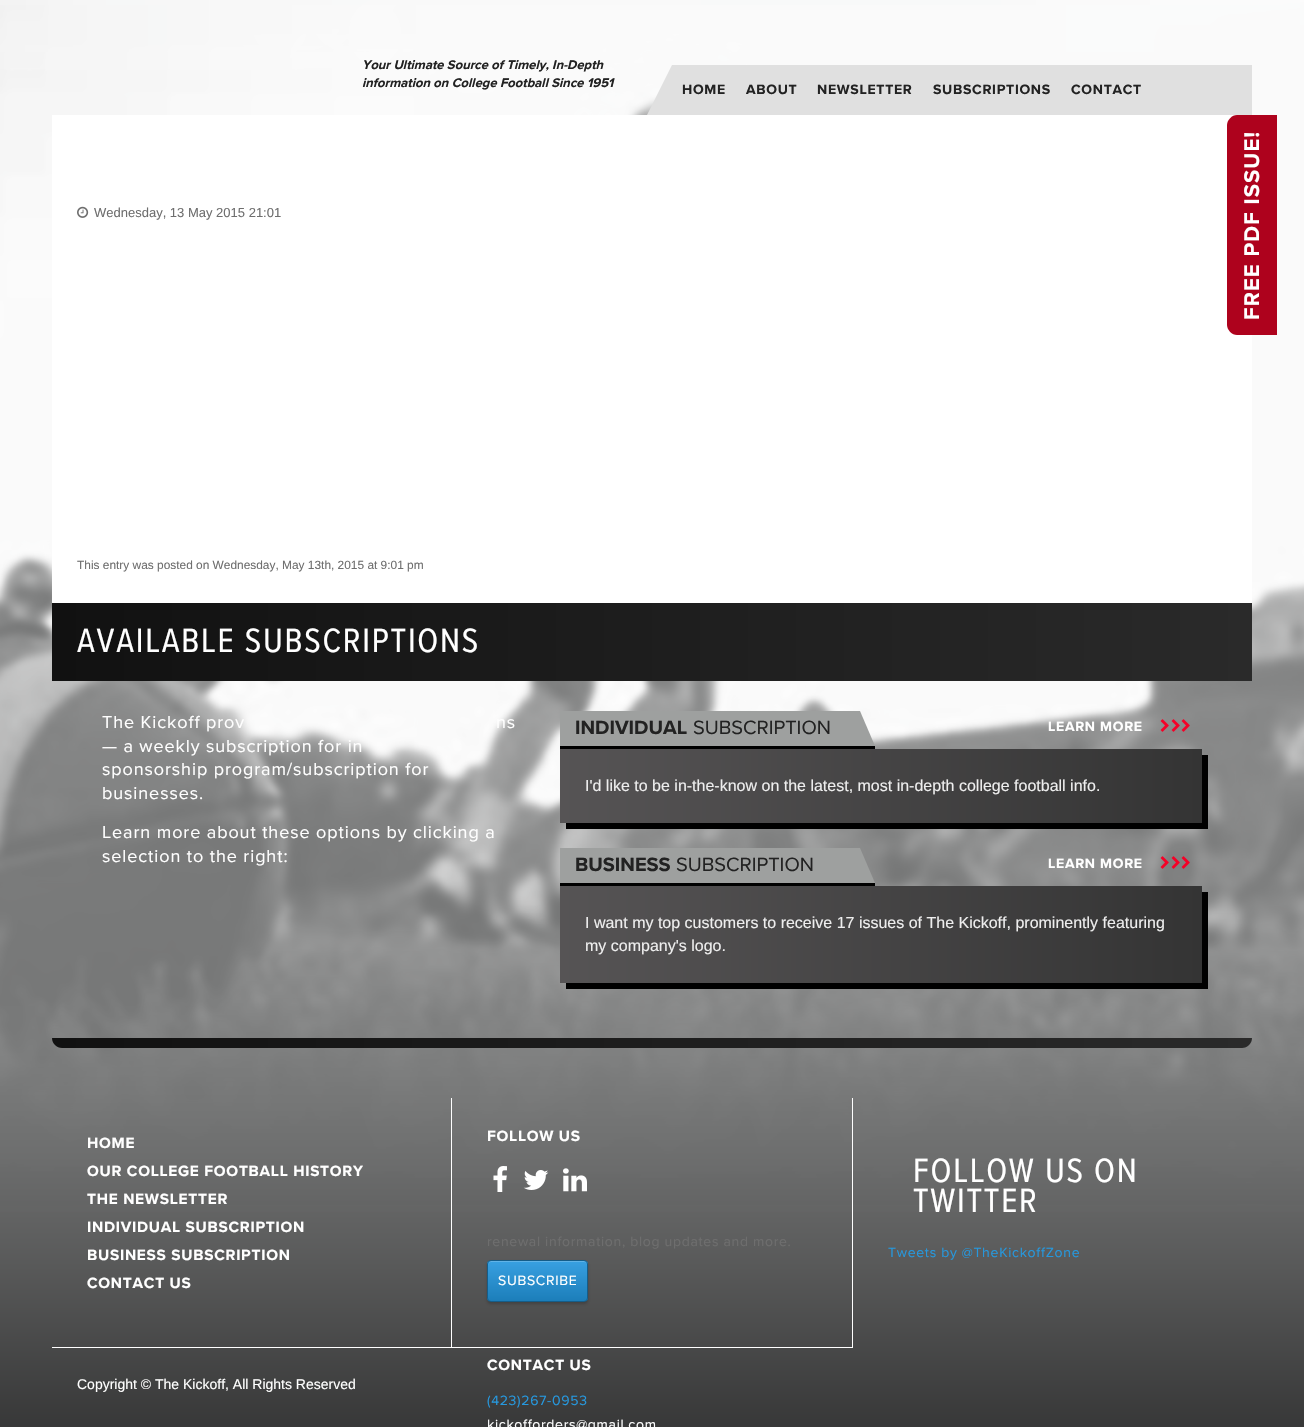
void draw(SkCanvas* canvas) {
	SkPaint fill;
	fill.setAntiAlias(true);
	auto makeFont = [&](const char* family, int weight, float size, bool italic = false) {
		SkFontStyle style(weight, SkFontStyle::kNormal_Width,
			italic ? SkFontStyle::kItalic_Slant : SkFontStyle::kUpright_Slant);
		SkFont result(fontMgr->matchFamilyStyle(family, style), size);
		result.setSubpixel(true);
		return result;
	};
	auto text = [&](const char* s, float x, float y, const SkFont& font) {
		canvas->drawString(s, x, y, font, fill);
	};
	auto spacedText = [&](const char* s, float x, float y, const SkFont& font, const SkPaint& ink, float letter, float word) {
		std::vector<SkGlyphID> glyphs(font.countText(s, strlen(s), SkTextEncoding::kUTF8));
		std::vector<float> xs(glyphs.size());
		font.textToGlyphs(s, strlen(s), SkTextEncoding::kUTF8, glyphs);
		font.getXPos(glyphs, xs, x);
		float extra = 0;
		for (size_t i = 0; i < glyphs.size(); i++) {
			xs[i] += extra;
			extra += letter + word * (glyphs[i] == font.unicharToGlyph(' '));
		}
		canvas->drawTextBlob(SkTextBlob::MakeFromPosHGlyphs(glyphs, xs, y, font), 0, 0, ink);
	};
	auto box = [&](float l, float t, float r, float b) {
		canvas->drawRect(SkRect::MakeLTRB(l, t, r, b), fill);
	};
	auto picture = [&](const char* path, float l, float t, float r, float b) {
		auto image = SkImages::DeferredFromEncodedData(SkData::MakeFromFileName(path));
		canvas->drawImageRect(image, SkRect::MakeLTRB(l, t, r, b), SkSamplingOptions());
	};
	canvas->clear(0xFFFFFFFF);
	picture("image0.png", 0, 0, 1304, 1427);
	fill.setColor(0xFFE0E0E0);
	box(672, 65, 1252, 115);
	canvas->drawPath(SkPathBuilder().moveTo(672, 115).lineTo(647, 115).lineTo(672, 65).close().detach(), fill);
	fill.setColor(0xFFFFFFFF);
	box(52, 115, 1252, 603);
	picture("image1.png", 77, 206, 89, 218);
	{
		const SkColor colors[] = {0xFF111111, 0xFF2A2A2A};
		const float stops[] = {0, 1};
		const SkPoint ends[] = {{52, 642}, {1252, 642}};
		fill.setShader(SkGradientShader::MakeLinear(ends, colors, stops, 2, SkTileMode::kClamp));
		fill.setAlpha(255);
	}
	box(52, 603, 1252, 681);
	fill.setShader(nullptr);
	fill.setColor(0xFF000000);
	box(560, 746, 875, 749);
	fill.setColor(0xFF9EA09F);
	box(560, 711, 860, 746);
	canvas->drawPath(SkPathBuilder().moveTo(875, 746).lineTo(860, 746).lineTo(860, 711).close().detach(), fill);
	picture("image2.png", 1160, 719, 1169, 732);
	picture("image3.png", 1171, 719, 1180, 732);
	picture("image4.png", 1181, 719, 1190, 732);
	fill.setColor(0xFF000000);
	canvas->drawPath(SkPathBuilder().moveTo(566, 823).lineTo(566, 829).lineTo(1208, 829).lineTo(1208, 755).lineTo(1202, 755).lineTo(1202, 823).close().detach(), fill);
	{
		const SkColor colors[] = {0xFF565455, 0xFF343434};
		const float stops[] = {0, 1};
		const SkPoint ends[] = {{560, 786}, {1202, 786}};
		fill.setShader(SkGradientShader::MakeLinear(ends, colors, stops, 2, SkTileMode::kClamp));
		fill.setAlpha(255);
	}
	box(560, 749, 1202, 823);
	fill.setShader(nullptr);
	fill.setColor(0xFF000000);
	box(560, 883, 875, 886);
	fill.setColor(0xFF9EA09F);
	box(560, 848, 860, 883);
	canvas->drawPath(SkPathBuilder().moveTo(875, 883).lineTo(860, 883).lineTo(860, 848).close().detach(), fill);
	picture("image5.png", 1160, 856, 1169, 869);
	picture("image6.png", 1171, 856, 1180, 869);
	picture("image7.png", 1181, 856, 1190, 869);
	fill.setColor(0xFF000000);
	canvas->drawPath(SkPathBuilder().moveTo(566, 983).lineTo(566, 989).lineTo(1208, 989).lineTo(1208, 892).lineTo(1202, 892).lineTo(1202, 983).close().detach(), fill);
	{
		const SkColor colors[] = {0xFF565455, 0xFF343434};
		const float stops[] = {0, 1};
		const SkPoint ends[] = {{560, 935}, {1202, 935}};
		fill.setShader(SkGradientShader::MakeLinear(ends, colors, stops, 2, SkTileMode::kClamp));
		fill.setAlpha(255);
	}
	box(560, 886, 1202, 983);
	{
		const SkColor colors[] = {0xFF111111, 0xFF2A2A2A};
		const float stops[] = {0, 1};
		const SkPoint ends[] = {{52, 1043}, {1252, 1043}};
		fill.setShader(SkGradientShader::MakeLinear(ends, colors, stops, 2, SkTileMode::kClamp));
		fill.setAlpha(255);
	}
	canvas->drawPath(SkPathBuilder().moveTo(52, 1038).lineTo(1252, 1038).cubicTo(1252, 1043.5f, 1247.5f, 1048, 1242, 1048).lineTo(62, 1048).cubicTo(56.5f, 1048, 52, 1043.5f, 52, 1038).close().detach(), fill);
	fill.setShader(nullptr);
	fill.setColor(0xFFAE021D);
	canvas->drawPath(SkPathBuilder().moveTo(1227, 325).lineTo(1227, 125).cubicTo(1227, 120, 1232, 115, 1237, 115).lineTo(1277, 115).lineTo(1277, 335).lineTo(1237, 335).cubicTo(1232, 335, 1227, 330, 1227, 325).close().detach(), fill);
	fill.setColor(0xFFFFFFFF);
	box(451, 1098, 452, 1348);
	box(52, 1347, 852, 1348);
	picture("image8.png", 493, 1166, 507, 1192);
	picture("image9.png", 523, 1170, 549, 1190);
	picture("image10.png", 563, 1168, 587, 1192);
	fill.setColor(0x33000000);
	fill.setMaskFilter(SkMaskFilter::MakeBlur(kNormal_SkBlurStyle, 1.5f));
	canvas->drawRoundRect(SkRect::MakeLTRB(487, 1262, 588, 1304), 4, 4, fill);
	fill.setMaskFilter(nullptr);
	canvas->save();
	canvas->clipPath(SkPathBuilder().moveTo(491, 1260).lineTo(584, 1260).cubicTo(586, 1260, 588, 1262, 588, 1264).lineTo(588, 1298).cubicTo(588, 1300, 586, 1302, 584, 1302).lineTo(491, 1302).cubicTo(489, 1302, 487, 1300, 487, 1298).lineTo(487, 1264).cubicTo(487, 1262, 489, 1260, 491, 1260).close().detach(), true);
	{
		const SkColor colors[] = {0xFF38A0E1, 0xFF1C7EBA};
		const float stops[] = {0, 1};
		const SkPoint ends[] = {{538, 1261}, {538, 1301}};
		fill.setShader(SkGradientShader::MakeLinear(ends, colors, stops, 2, SkTileMode::kClamp));
		fill.setAlpha(255);
	}
	box(487, 1261, 588, 1301);
	canvas->restore();
	fill.setShader(nullptr);
	fill.setColor(0x33FFFFFF);
	canvas->drawPath(SkPathBuilder().moveTo(491, 1262).lineTo(584, 1262).cubicTo(586, 1262, 587, 1263, 587, 1265).cubicTo(587, 1257, 571, 1261, 568, 1261).lineTo(506, 1261).cubicTo(504, 1261, 488, 1257, 488, 1265).cubicTo(488, 1263, 489, 1262, 491, 1262).close().detach(), fill);
	fill.setStyle(SkPaint::kStroke_Style);
	fill.setStrokeWidth(1);
	fill.setColor(0xFF155D89);
	canvas->drawRoundRect(SkRect::MakeLTRB(487.5f, 1260.5f, 587.5f, 1301.5f), 3.5f, 3.5f, fill);
	fill.setStyle(SkPaint::kFill_Style);
	fill.setColor(0xFFFFFFFF);
	box(852, 1098, 853, 1348);
	auto font1 = makeFont("Proxima Nova", 700, 13, true);
	fill.setColor(0xFF222222);
	text("Your Ultimate Source of Timely, In-Depth", 362, 69, font1);
	text("information on College Football Since 1951", 362, 87, font1);
	auto font2 = makeFont("Proxima Nova", 700, 14);
	spacedText("HOME", 682, 94, font2, fill, 0.7f, 0);
	spacedText("ABOUT", 746, 94, font2, fill, 0.7f, 0);
	spacedText("NEWSLETTER", 817, 94, font2, fill, 0.7f, 0);
	spacedText("SUBSCRIPTIONS", 933, 94, font2, fill, 0.7f, 0);
	spacedText("CONTACT", 1071, 94, font2, fill, 0.7f, 0);
	auto font3 = makeFont("Liberation Sans", 400, 13);
	fill.setColor(0xFF6E6E6E);
	text("Wednesday, 13 May 2015 21:01", 94, 217, font3);
	auto font4 = makeFont("Liberation Sans", 400, 11.9f);
	text("This entry was posted on Wednesday, May 13th, 2015 at 9:01 pm", 77, 569, font4);
	auto font5 = makeFont("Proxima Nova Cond", 400, 35);
	fill.setColor(0xFFFFFFFF);
	spacedText("AVAILABLE SUBSCRIPTIONS", 77, 652, font5, fill, 1.75f, 0);
	auto font6 = makeFont("Proxima Nova", 400, 18);
	spacedText("The Kickoff prov", 102, 728, font6, fill, 0.9f, 0);
	spacedText("ns", 496, 728, font6, fill, 0.9f, 0);
	spacedText("— a weekly subscription for in", 102, 752, font6, fill, 0.9f, 0);
	spacedText("sponsorship program/subscription for", 102, 775, font6, fill, 0.9f, 0);
	spacedText("businesses.", 102, 799, font6, fill, 0.9f, 0);
	spacedText("Learn more about these options by clicking a", 102, 838, font6, fill, 0.9f, 0);
	spacedText("selection to the right:", 102, 862, font6, fill, 0.9f, 0);
	auto font7 = makeFont("Proxima Nova", 700, 20);
	fill.setColor(0xFF222222);
	text("INDIVIDUAL", 575, 734, font7);
	auto font8 = makeFont("Proxima Nova", 400, 20);
	text("SUBSCRIPTION", 693, 734, font8);
	fill.setColor(0xFFFFFFFF);
	spacedText("LEARN MORE", 1048, 731, font2, fill, 0.7f, 0);
	auto font9 = makeFont("Liberation Sans", 400, 16);
	fill.setColor(0xFFEEEEEE);
	text("I'd like to be in-the-know on the latest, most in-depth college football info.", 585, 791, font9);
	fill.setColor(0xFF222222);
	text("BUSINESS", 575, 871, font7);
	text("SUBSCRIPTION", 676, 871, font8);
	fill.setColor(0xFFFFFFFF);
	spacedText("LEARN MORE", 1048, 868, font2, fill, 0.7f, 0);
	fill.setColor(0xFFEEEEEE);
	text("I want my top customers to receive 17 issues of The Kickoff, prominently featuring", 585, 928, font9);
	text("my company's logo.", 585, 951, font9);
	auto font10 = makeFont("Proxima Nova", 700, 22);
	fill.setColor(0xFFFFFFFF);
	canvas->save();
	canvas->rotate(-90, 1259, 320);
	spacedText("FREE PDF ISSUE!", 1259, 320, font10, fill, 1.1f, 0);
	canvas->restore();
	auto font11 = makeFont("Proxima Nova", 700, 15.4f);
	spacedText("HOME", 87, 1148, font11, fill, 0.75f, 0);
	spacedText("OUR COLLEGE FOOTBALL HISTORY", 87, 1176, font11, fill, 0.75f, 0);
	spacedText("THE NEWSLETTER", 87, 1204, font11, fill, 0.75f, 0);
	spacedText("INDIVIDUAL SUBSCRIPTION", 87, 1232, font11, fill, 0.75f, 0);
	spacedText("BUSINESS SUBSCRIPTION", 87, 1260, font11, fill, 0.75f, 0);
	spacedText("CONTACT US", 87, 1288, font11, fill, 0.75f, 0);
	spacedText("FOLLOW US", 487, 1141, font11, fill, 0.75f, 0);
	auto font12 = makeFont("Proxima Nova", 400, 14);
	fill.setColor(0xFF6E6E6E);
	spacedText("renewal information, blog updates and more.", 487, 1246, font12, fill, 0.7f, 0);
	fill.setColor(0xFFFFFFFF);
	spacedText("SUBSCRIBE", 498, 1285, font12, fill, 0.7f, 0);
	spacedText("CONTACT US", 487, 1370, font11, fill, 0.75f, 0);
	fill.setColor(0xFF2698DE);
	spacedText("(423)267-0953", 487, 1405, font12, fill, 0.7f, 0);
	fill.setColor(0xFFFFFFFF);
	spacedText("kickofforders@gmail.com", 487, 1429, font12, fill, 0.7f, 0);
	spacedText("FOLLOW US ON", 913, 1182, font5, fill, 1.75f, 0);
	spacedText("TWITTER", 913, 1212, font5, fill, 1.75f, 0);
	fill.setColor(0xFF2698DE);
	spacedText("Tweets by @TheKickoffZone", 888, 1257, font12, fill, 0.7f, 0);
	auto font13 = makeFont("Liberation Sans", 400, 14);
	fill.setColor(0xFFFFFFFF);
	text("Copyright © The Kickoff, All Rights Reserved", 77, 1389, font13);
}
